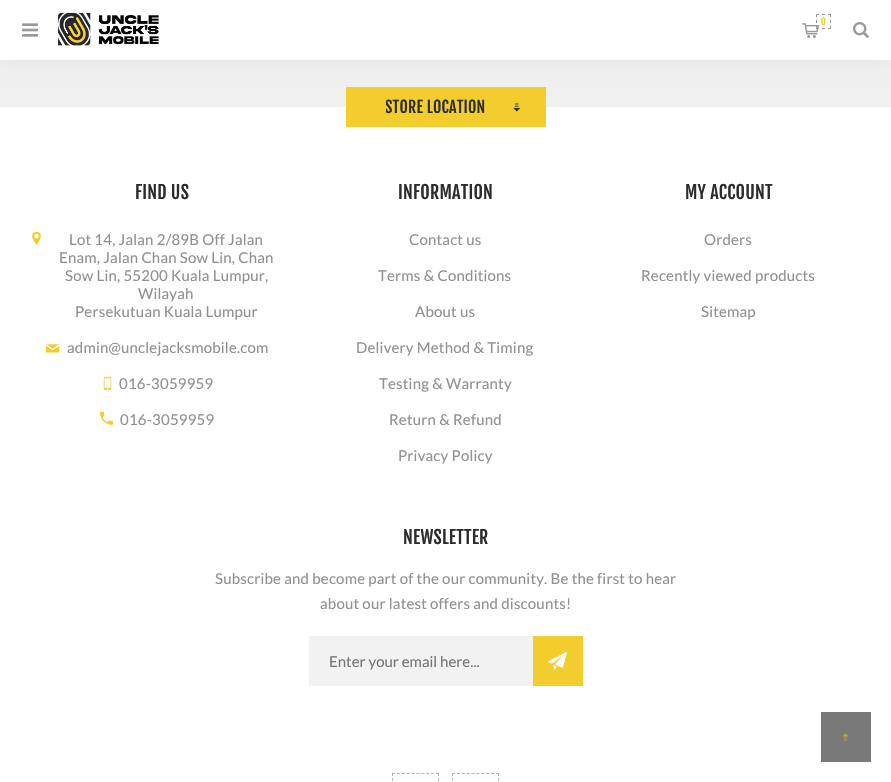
void draw(SkCanvas* canvas) {
	SkPaint fill;
	fill.setAntiAlias(true);
	auto makeFont = [&](const char* family, int weight, float size, bool italic = false) {
		SkFontStyle style(weight, SkFontStyle::kNormal_Width,
			italic ? SkFontStyle::kItalic_Slant : SkFontStyle::kUpright_Slant);
		SkFont result(fontMgr->matchFamilyStyle(family, style), size);
		result.setSubpixel(true);
		return result;
	};
	auto text = [&](const char* s, float x, float y, const SkFont& font) {
		canvas->drawString(s, x, y, font, fill);
	};
	auto spacedText = [&](const char* s, float x, float y, const SkFont& font, const SkPaint& ink, float letter, float word) {
		std::vector<SkGlyphID> glyphs(font.countText(s, strlen(s), SkTextEncoding::kUTF8));
		std::vector<float> xs(glyphs.size());
		font.textToGlyphs(s, strlen(s), SkTextEncoding::kUTF8, glyphs);
		font.getXPos(glyphs, xs, x);
		float extra = 0;
		for (size_t i = 0; i < glyphs.size(); i++) {
			xs[i] += extra;
			extra += letter + word * (glyphs[i] == font.unicharToGlyph(' '));
		}
		canvas->drawTextBlob(SkTextBlob::MakeFromPosHGlyphs(glyphs, xs, y, font), 0, 0, ink);
	};
	auto box = [&](float l, float t, float r, float b) {
		canvas->drawRect(SkRect::MakeLTRB(l, t, r, b), fill);
	};
	auto picture = [&](const char* path, float l, float t, float r, float b) {
		auto image = SkImages::DeferredFromEncodedData(SkData::MakeFromFileName(path));
		canvas->drawImageRect(image, SkRect::MakeLTRB(l, t, r, b), SkSamplingOptions());
	};
	canvas->clear(0xFFF0F0F0);
	fill.setColor(0x0F000000);
	fill.setMaskFilter(SkMaskFilter::MakeBlur(kNormal_SkBlurStyle, 7));
	canvas->drawRect(SkRect::MakeLTRB(0, 0, 891, 60), fill);
	fill.setMaskFilter(nullptr);
	fill.setColor(0xFFFFFFFF);
	box(0, 0, 891, 60);
	picture("image0.png", 22, 23, 38, 37);
	picture("image1.png", 58, 12, 159, 46);
	picture("image2.png", 802, 23, 819, 38);
	fill.setStyle(SkPaint::kStroke_Style);
	fill.setStrokeWidth(1);
	fill.setColor(0xFF999999);
	canvas->drawPath(SkPathBuilder().moveTo(816, 14.5f).lineTo(819, 14.5f).moveTo(822, 14.5f).lineTo(825, 14.5f).moveTo(828, 14.5f).lineTo(831, 14.5f).moveTo(830.5f, 14).lineTo(830.5f, 17).moveTo(830.5f, 20).lineTo(830.5f, 23).moveTo(830.5f, 26).lineTo(830.5f, 29).moveTo(816, 28.5f).lineTo(819, 28.5f).moveTo(822, 28.5f).lineTo(825, 28.5f).moveTo(828, 28.5f).lineTo(831, 28.5f).moveTo(816.5f, 14).lineTo(816.5f, 17).moveTo(816.5f, 20).lineTo(816.5f, 23).moveTo(816.5f, 26).lineTo(816.5f, 29).detach(), fill);
	picture("image3.png", 853, 22, 869, 38);
	fill.setStyle(SkPaint::kFill_Style);
	fill.setColor(0xFFFFFFFF);
	box(0, 107, 891, 782);
	fill.setColor(0xFFF3CC2E);
	box(346, 87, 546, 127);
	picture("image4.png", 513, 103, 521, 112);
	picture("image5.png", 32, 231, 41, 245);
	picture("image6.png", 46, 344, 60, 353);
	picture("image7.png", 103, 376, 112, 390);
	picture("image8.png", 100, 411, 113, 425);
	fill.setColor(0xFFF2F2F2);
	box(309, 636, 533, 686);
	fill.setColor(0xFFF3CC2E);
	box(533, 636, 583, 686);
	picture("image9.png", 548, 652, 567, 670);
	fill.setStyle(SkPaint::kStroke_Style);
	fill.setColor(0xFFB2B2B2);
	fill.setPathEffect(SkDashPathEffect::Make({{3, 1.89f}}, 0));
	canvas->drawPath(SkPathBuilder().moveTo(392, 773.5f).lineTo(439, 773.5f).moveTo(438.5f, 773).lineTo(438.5f, 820).moveTo(392.5f, 773).lineTo(392.5f, 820).detach(), fill);
	fill.setPathEffect(nullptr);
	fill.setPathEffect(SkDashPathEffect::Make({{3, 1.89f}}, 0));
	canvas->drawPath(SkPathBuilder().moveTo(452, 773.5f).lineTo(499, 773.5f).moveTo(498.5f, 773).lineTo(498.5f, 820).moveTo(452.5f, 773).lineTo(452.5f, 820).detach(), fill);
	fill.setPathEffect(nullptr);
	fill.setStyle(SkPaint::kFill_Style);
	fill.setColor(0xFF797979);
	box(821, 712, 871, 762);
	picture("image10.png", 842, 733, 849, 741);
	auto font1 = makeFont("Fjalla One", 400, 9);
	fill.setColor(0xFFF3CC2E);
	spacedText("0", 821, 25, font1, fill, 0.2f, 0);
	canvas->save();
	canvas->clipRect(SkRect::MakeLTRB(386, 97, 486, 117));
	auto font2 = makeFont("Fjalla One", 400, 16);
	fill.setColor(0xFF2C2C2C);
	spacedText("STORE LOCATION", 385, 113, font2, fill, 0.2f, 0);
	canvas->restore();
	auto font3 = makeFont("Fjalla One", 400, 18);
	spacedText("FIND US", 135, 199, font3, fill, 0.2f, 0);
	auto font4 = makeFont("Lato", 400, 15);
	fill.setColor(0xFF909090);
	spacedText("Lot 14, Jalan 2/89B Off Jalan", 69, 245, font4, fill, 0.2f, 0);
	spacedText("Enam, Jalan Chan Sow Lin, Chan", 59, 263, font4, fill, 0.2f, 0);
	spacedText("Sow Lin, 55200 Kuala Lumpur,", 65, 281, font4, fill, 0.2f, 0);
	spacedText("Wilayah", 138, 299, font4, fill, 0.2f, 0);
	spacedText("Persekutuan Kuala Lumpur", 75, 317, font4, fill, 0.2f, 0);
	spacedText("admin@unclejacksmobile.com", 67, 353, font4, fill, 0.2f, 0);
	spacedText("016-3059959", 119, 389, font4, fill, 0.2f, 0);
	spacedText("016-3059959", 120, 425, font4, fill, 0.2f, 0);
	fill.setColor(0xFF2C2C2C);
	spacedText("INFORMATION", 398, 199, font3, fill, 0.2f, 0);
	fill.setColor(0xFF909090);
	spacedText("Contact us", 409, 245, font4, fill, 0.2f, 0);
	spacedText("Terms & Conditions", 378, 281, font4, fill, 0.2f, 0);
	spacedText("About us", 415, 317, font4, fill, 0.2f, 0);
	spacedText("Delivery Method & Timing", 356, 353, font4, fill, 0.2f, 0);
	spacedText("Testing & Warranty", 379, 389, font4, fill, 0.2f, 0);
	spacedText("Return & Refund", 389, 425, font4, fill, 0.2f, 0);
	spacedText("Privacy Policy", 398, 461, font4, fill, 0.2f, 0);
	fill.setColor(0xFF2C2C2C);
	spacedText("MY ACCOUNT", 685, 199, font3, fill, 0.2f, 0);
	fill.setColor(0xFF909090);
	spacedText("Orders", 704, 245, font4, fill, 0.2f, 0);
	spacedText("Recently viewed products", 641, 281, font4, fill, 0.2f, 0);
	spacedText("Sitemap", 701, 317, font4, fill, 0.2f, 0);
	fill.setColor(0xFF2C2C2C);
	spacedText("NEWSLETTER", 403, 544, font3, fill, 0.2f, 0);
	fill.setColor(0xFF909090);
	spacedText("Subscribe and become part of the our community. Be the first to hear", 215, 584, font4, fill, 0.2f, 0);
	spacedText("about our latest offers and discounts!", 320, 609, font4, fill, 0.2f, 0);
	fill.setColor(0xFF757575);
	text("Enter your email here...", 329, 667, font4);
}
